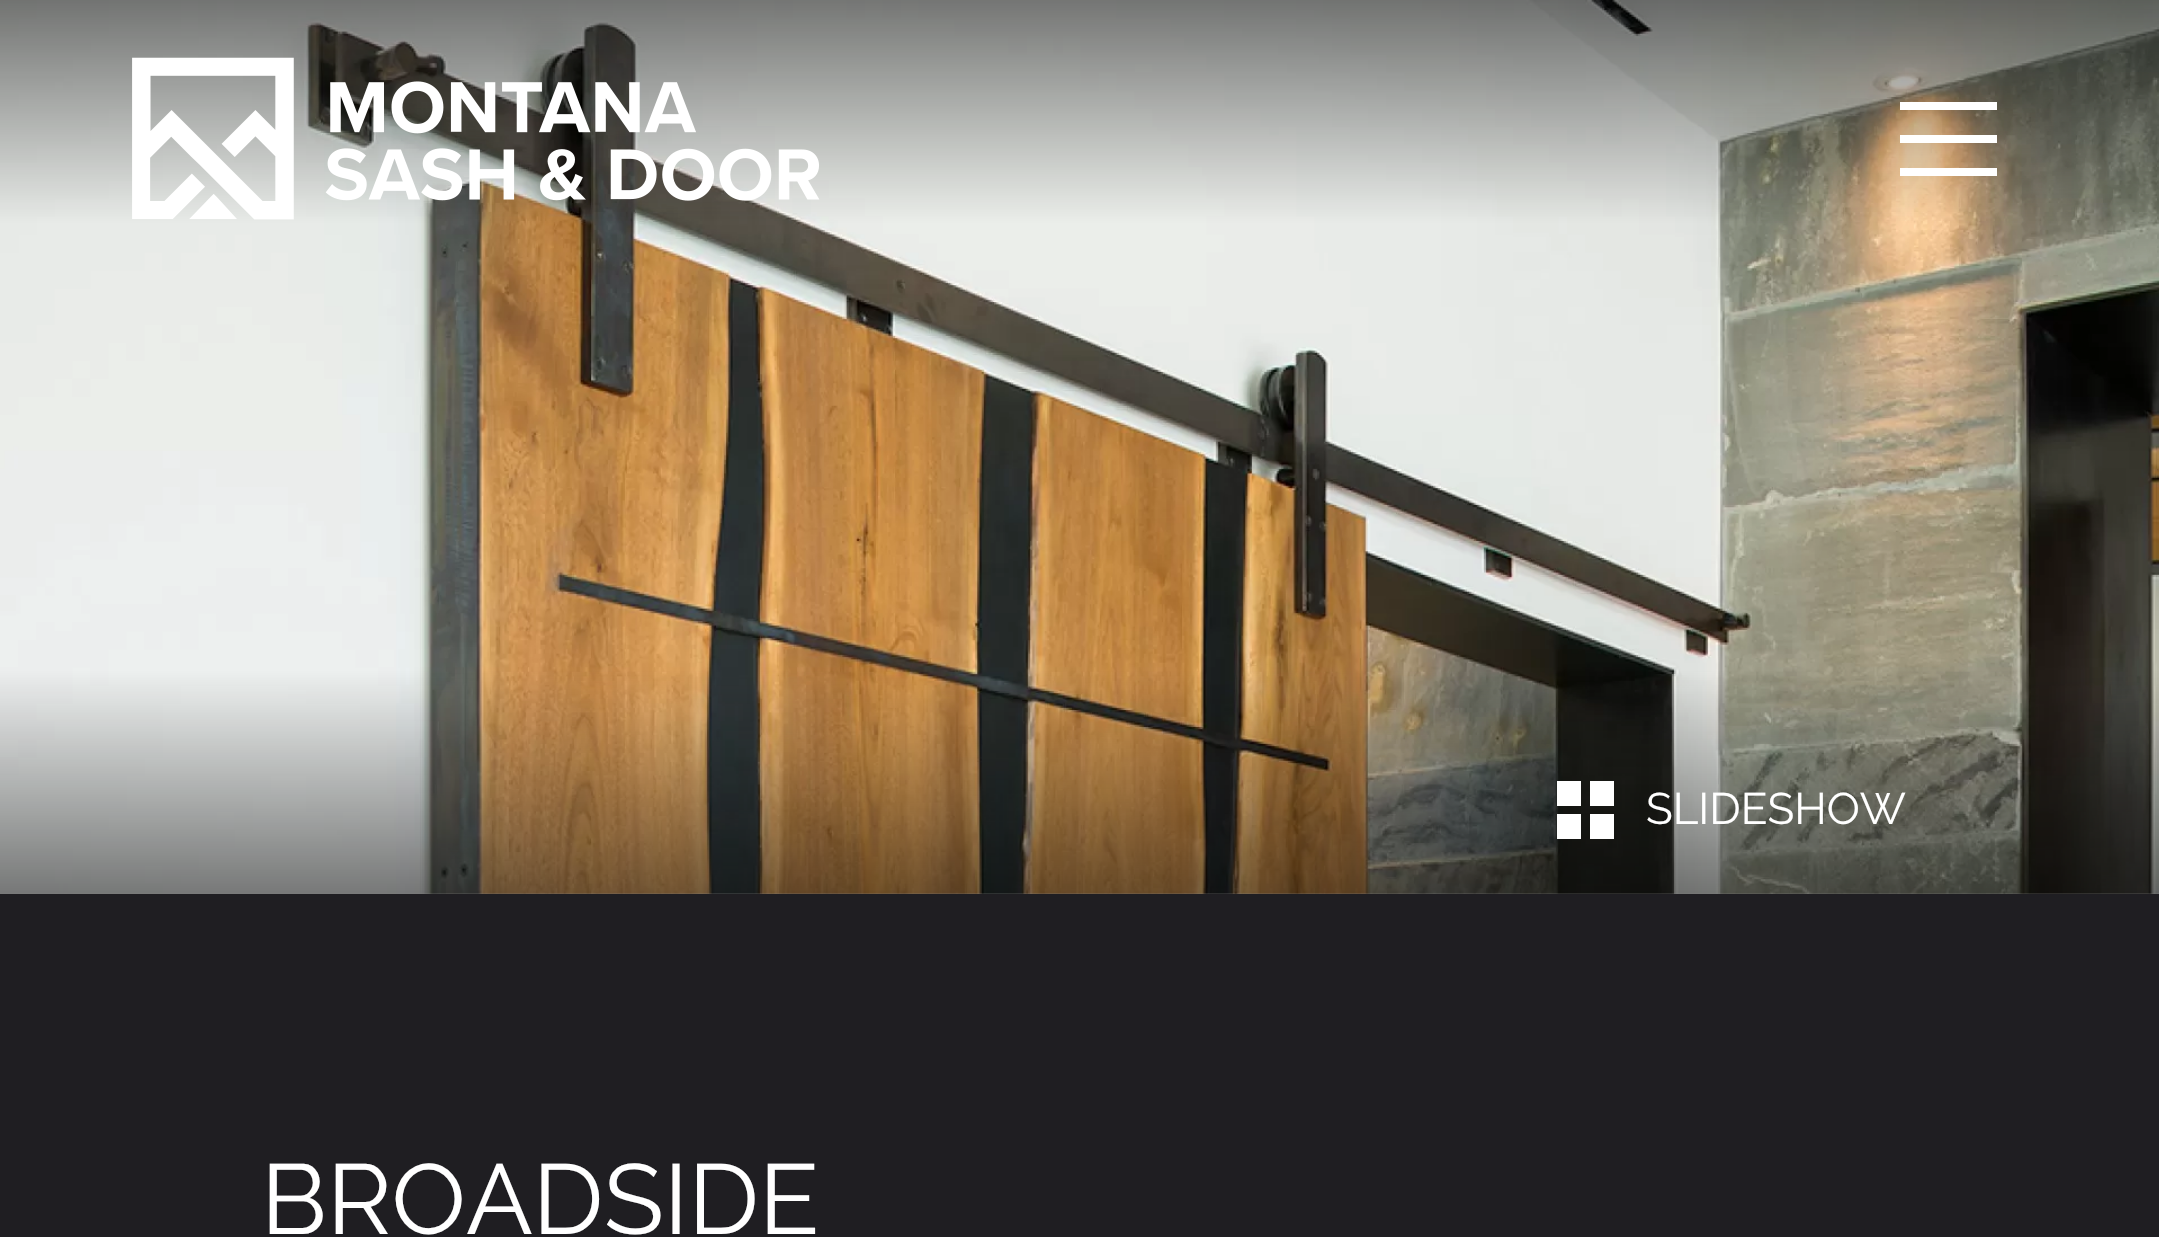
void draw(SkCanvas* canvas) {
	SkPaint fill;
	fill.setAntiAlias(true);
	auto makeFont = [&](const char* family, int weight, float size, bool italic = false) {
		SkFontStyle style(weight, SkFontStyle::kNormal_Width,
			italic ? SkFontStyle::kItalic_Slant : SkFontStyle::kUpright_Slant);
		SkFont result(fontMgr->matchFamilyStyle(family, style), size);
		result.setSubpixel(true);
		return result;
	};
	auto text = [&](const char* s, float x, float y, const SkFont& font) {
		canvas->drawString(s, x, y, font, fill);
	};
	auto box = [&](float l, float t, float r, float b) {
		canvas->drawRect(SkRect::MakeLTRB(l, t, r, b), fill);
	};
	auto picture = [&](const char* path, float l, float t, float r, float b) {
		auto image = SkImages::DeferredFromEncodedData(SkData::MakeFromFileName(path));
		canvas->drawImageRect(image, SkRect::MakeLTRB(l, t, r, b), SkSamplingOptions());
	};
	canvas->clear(0xFFFFFFFF);
	picture("image1.png", 0, 0, 2159, 894);
	{
		const SkColor colors[] = {0x80000000, 0x00000000, 0x00000000, 0x80000000};
		const float stops[] = {0, 0.25f, 0.75f, 1};
		const SkPoint ends[] = {{1081, 0}, {1081, 894}};
		fill.setShader(SkGradientShader::MakeLinear(ends, colors, stops, 4, SkTileMode::kClamp));
		fill.setAlpha(255);
	}
	box(0, 0, 2159, 894);
	picture("image0.png", 132, 57, 820, 220);
	fill.setShader(nullptr);
	fill.setColor(0xFFFFFFFF);
	box(1900, 135, 1997, 143);
	box(1900, 102, 1997, 110);
	box(1900, 168, 1997, 176);
	canvas->save();
	canvas->clipRect(SkRect::MakeLTRB(1557, 781, 1614, 839));
	canvas->drawPath(SkPathBuilder().moveTo(1581, 806).lineTo(1556, 806).lineTo(1556, 781).lineTo(1581, 781).close().moveTo(1614, 781).lineTo(1590, 781).lineTo(1590, 806).lineTo(1614, 806).close().moveTo(1581, 814).lineTo(1556, 814).lineTo(1556, 839).lineTo(1581, 839).close().moveTo(1614, 814).lineTo(1590, 814).lineTo(1590, 839).lineTo(1614, 839).close().detach(), fill);
	canvas->restore();
	fill.setColor(0xFF1F1E22);
	box(0, 894, 2159, 1237);
	auto font1 = makeFont("Raleway", 400, 44);
	fill.setColor(0xFFFFFFFF);
	text("SLIDESHOW", 1646, 824, font1);
	auto font2 = makeFont("Raleway", 400, 99);
	text("BROADSIDE", 261, 1234, font2);
}
